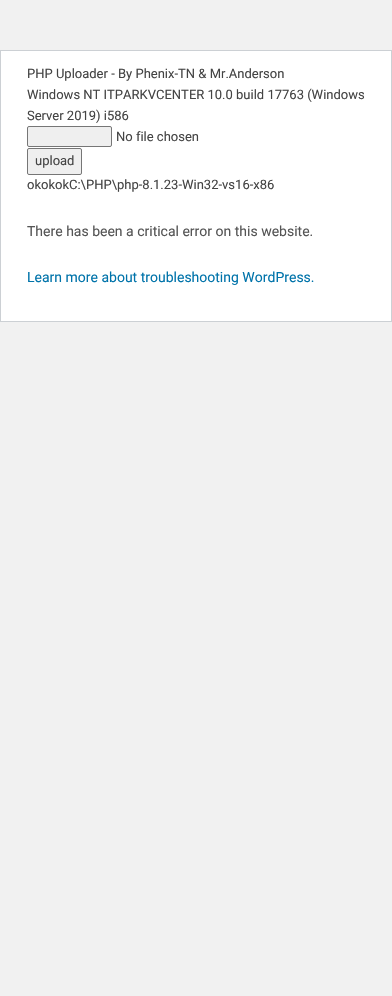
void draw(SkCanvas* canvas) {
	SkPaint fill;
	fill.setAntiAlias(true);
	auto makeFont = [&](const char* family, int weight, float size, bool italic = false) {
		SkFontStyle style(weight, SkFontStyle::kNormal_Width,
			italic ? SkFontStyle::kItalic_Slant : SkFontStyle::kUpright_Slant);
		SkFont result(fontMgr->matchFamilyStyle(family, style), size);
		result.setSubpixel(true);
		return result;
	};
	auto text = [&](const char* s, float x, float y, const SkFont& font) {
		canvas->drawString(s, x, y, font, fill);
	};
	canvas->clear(0xFFF1F1F1);
	fill.setColor(0xFFFFFFFF);
	canvas->drawRect(SkRect::MakeLTRB(0.5f, 50.5f, 391.5f, 321.5f), fill);
	fill.setStyle(SkPaint::kStroke_Style);
	fill.setStrokeWidth(1);
	fill.setColor(0xFFCCD0D4);
	canvas->drawRect(SkRect::MakeLTRB(0.5f, 50.5f, 391.5f, 321.5f), fill);
	fill.setStyle(SkPaint::kFill_Style);
	fill.setColor(0xFFEFEFEF);
	canvas->drawRoundRect(SkRect::MakeLTRB(27.5f, 126.5f, 111.5f, 146.5f), 1.5f, 1.5f, fill);
	fill.setStyle(SkPaint::kStroke_Style);
	fill.setColor(0xFF767676);
	canvas->drawRoundRect(SkRect::MakeLTRB(27.5f, 126.5f, 111.5f, 146.5f), 1.5f, 1.5f, fill);
	fill.setStyle(SkPaint::kFill_Style);
	fill.setColor(0xFFEFEFEF);
	canvas->drawRoundRect(SkRect::MakeLTRB(27.5f, 148.5f, 81.5f, 174.5f), 1.5f, 1.5f, fill);
	fill.setStyle(SkPaint::kStroke_Style);
	fill.setColor(0xFF767676);
	canvas->drawRoundRect(SkRect::MakeLTRB(27.5f, 148.5f, 81.5f, 174.5f), 1.5f, 1.5f, fill);
	auto font1 = makeFont("Roboto", 400, 13);
	fill.setStyle(SkPaint::kFill_Style);
	fill.setColor(0xFF444444);
	text("PHP Uploader - By Phenix-TN & Mr.Anderson", 27, 78, font1);
	text("Windows NT ITPARKVCENTER 10.0 build 17763 (Windows", 27, 99, font1);
	text("Server 2019) i586", 27, 120, font1);
	text("No file chosen", 116, 141, font1);
	text("upload", 35, 165, font1);
	text("okokokC:\\PHP\\php-8.1.23-Win32-vs16-x86", 27, 189, font1);
	auto font2 = makeFont("Roboto", 400, 14);
	fill.setColor(0xFF555555);
	text("There has been a critical error on this website.", 27, 236, font2);
	fill.setColor(0xFF0073AA);
	text("Learn more about troubleshooting WordPress.", 27, 282, font2);
}
